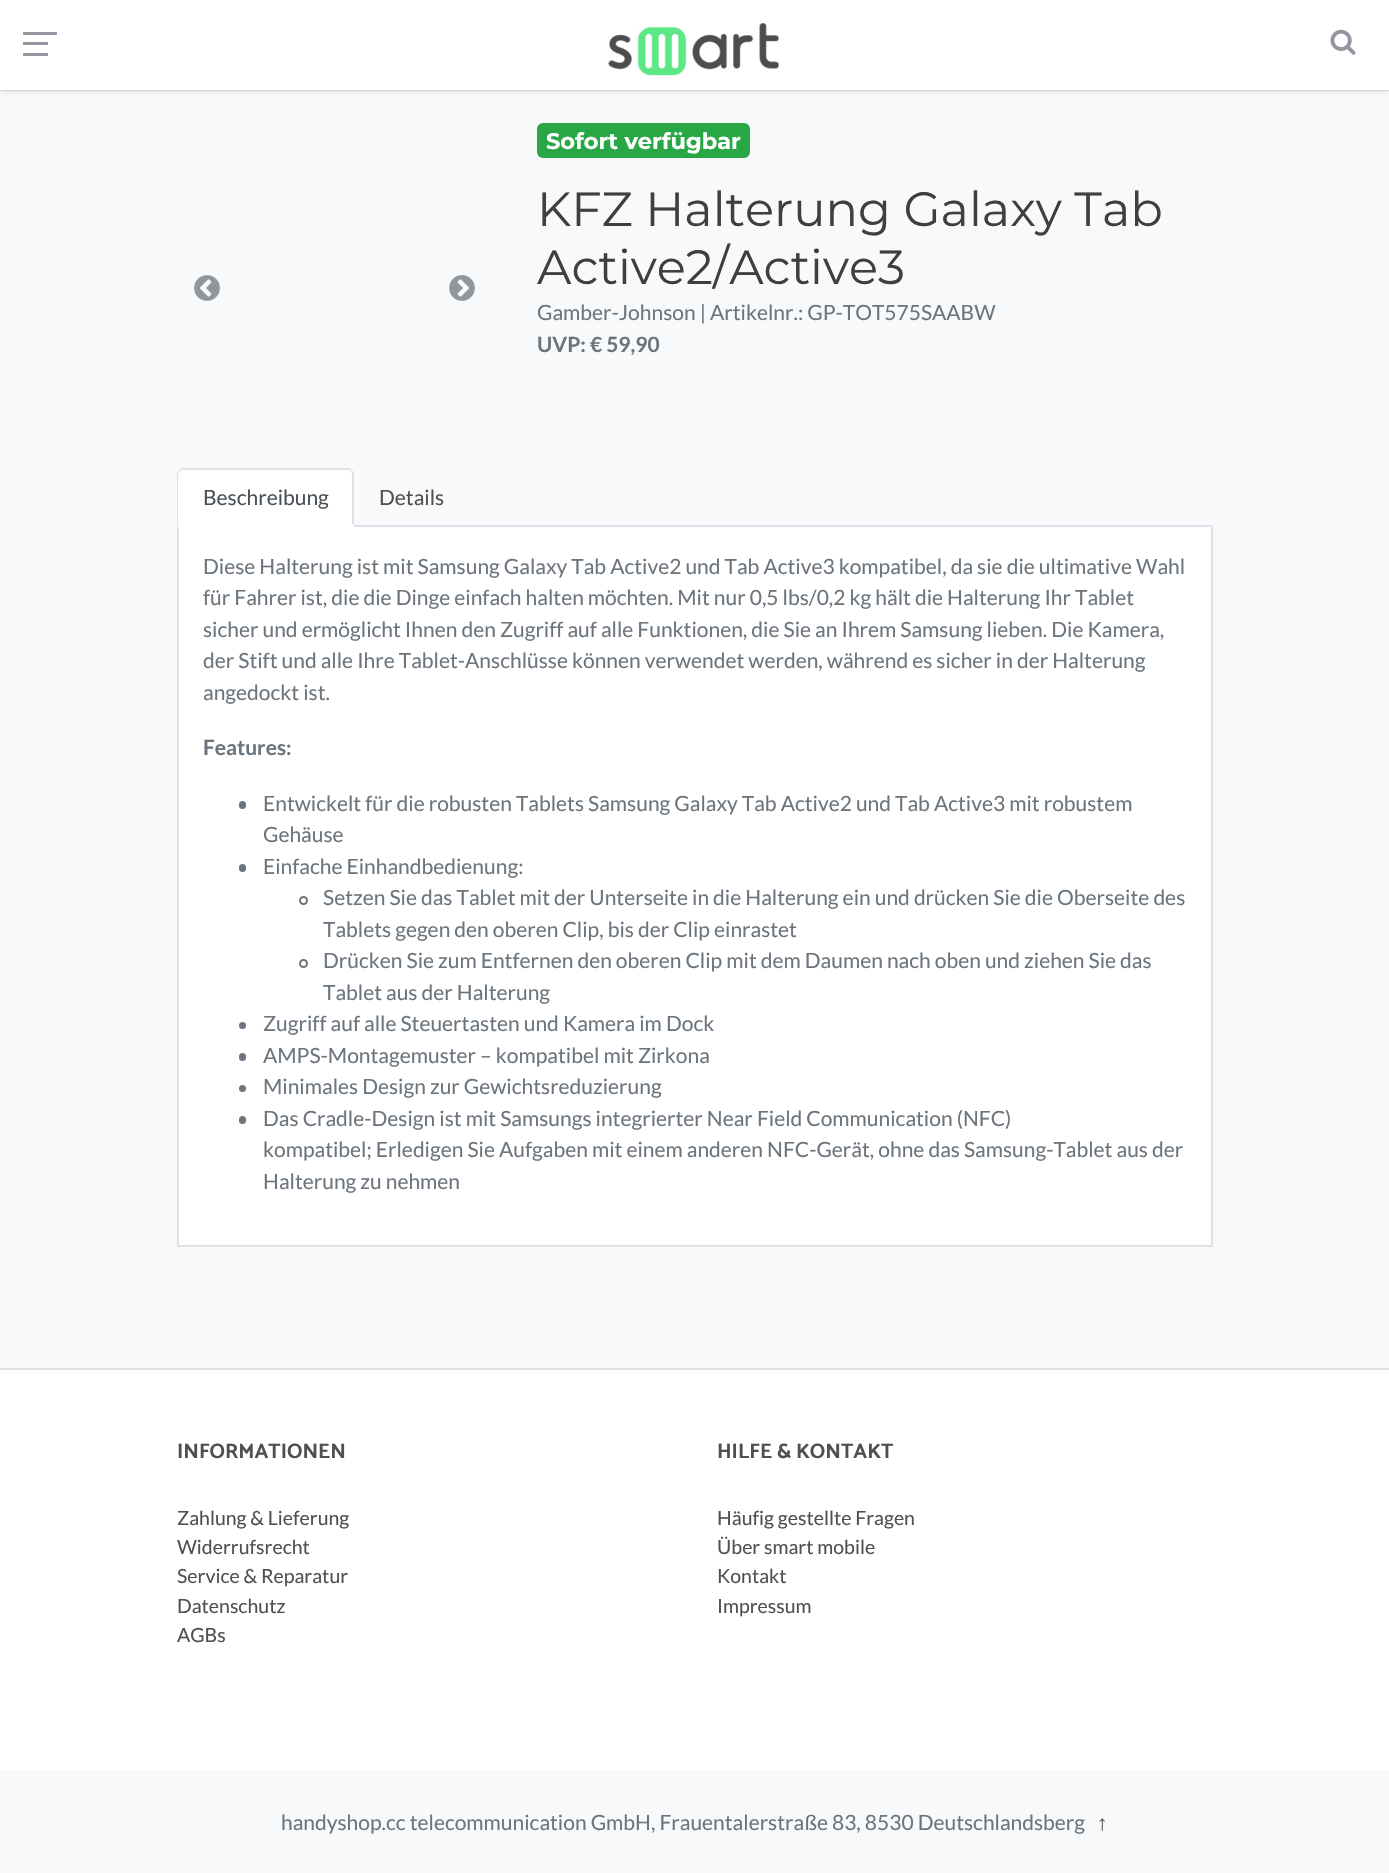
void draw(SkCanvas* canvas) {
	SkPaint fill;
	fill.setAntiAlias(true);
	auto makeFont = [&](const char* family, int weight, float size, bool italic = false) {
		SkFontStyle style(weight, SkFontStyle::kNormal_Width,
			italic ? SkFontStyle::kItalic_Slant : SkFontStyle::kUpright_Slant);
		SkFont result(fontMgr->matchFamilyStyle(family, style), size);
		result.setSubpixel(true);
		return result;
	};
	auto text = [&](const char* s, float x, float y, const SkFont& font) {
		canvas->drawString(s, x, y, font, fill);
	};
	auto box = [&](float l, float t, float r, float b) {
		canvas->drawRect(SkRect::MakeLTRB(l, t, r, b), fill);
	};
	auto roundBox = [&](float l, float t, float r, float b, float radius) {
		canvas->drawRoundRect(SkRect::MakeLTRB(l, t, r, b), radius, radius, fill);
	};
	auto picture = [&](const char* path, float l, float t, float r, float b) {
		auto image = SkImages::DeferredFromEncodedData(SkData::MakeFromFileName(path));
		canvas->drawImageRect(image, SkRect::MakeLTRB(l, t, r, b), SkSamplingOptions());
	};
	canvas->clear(0xFFF8F9FA);
	fill.setColor(0x29000000);
	fill.setMaskFilter(SkMaskFilter::MakeBlur(kNormal_SkBlurStyle, 3));
	canvas->drawRect(SkRect::MakeLTRB(0, 0, 1389, 90), fill);
	fill.setMaskFilter(nullptr);
	fill.setColor(0xFFFFFFFF);
	box(0, 0, 1389, 90);
	canvas->save();
	canvas->clipRect(SkRect::MakeLTRB(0, 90, 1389, 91));
	fill.setColor(0x4D000000);
	fill.setMaskFilter(SkMaskFilter::MakeBlur(kNormal_SkBlurStyle, 1));
	canvas->drawRect(SkRect::MakeLTRB(0, 0, 1389, 90), fill);
	fill.setMaskFilter(nullptr);
	canvas->restore();
	fill.setColor(0xFF9196A0);
	box(23, 42, 48, 45);
	box(23, 32, 57, 35);
	box(23, 53, 48, 56);
	picture("image0.png", 608, 23, 779, 76);
	picture("image1.png", 1330, 29, 1356, 55);
	picture("image2.png", 194, 275, 220, 301);
	picture("image3.png", 449, 275, 475, 301);
	fill.setColor(0xFF28A745);
	roundBox(537, 123, 750, 158, 6);
	fill.setColor(0xFFDEE2E6);
	box(354, 525, 1212, 527);
	fill.setColor(0xFFFFFFFF);
	canvas->drawPath(SkPathBuilder().moveTo(183, 468).lineTo(348, 468).cubicTo(351.5f, 468, 354, 470.5f, 354, 474).lineTo(354, 527).lineTo(177, 527).lineTo(177, 474).cubicTo(177, 470.5f, 179.5f, 468, 183, 468).close().detach(), fill);
	fill.setColor(0xFFDEE2E6);
	canvas->drawPath(SkPathBuilder().moveTo(183, 468).cubicTo(182, 468, 180, 469, 179, 470).lineTo(180, 471).lineTo(183, 470).lineTo(348, 470).cubicTo(349, 470, 350, 470, 351, 471).lineTo(352, 470).cubicTo(351, 469, 350, 468, 348, 468).close().detach(), fill);
	canvas->drawPath(SkPathBuilder().moveTo(354, 526).lineTo(354, 474).cubicTo(354, 472, 353, 471, 352, 470).lineTo(351, 471).lineTo(352, 474).lineTo(352, 524).close().detach(), fill);
	fill.setColor(0xFFFFFFFF);
	canvas->drawPath(SkPathBuilder().moveTo(354, 526).lineTo(178, 526).lineTo(178, 525).lineTo(352, 525).lineTo(352, 524).close().detach(), fill);
	fill.setColor(0xFFDEE2E6);
	canvas->drawPath(SkPathBuilder().moveTo(177, 474).lineTo(177, 526).lineTo(178, 526).lineTo(178, 525).lineTo(178, 474).lineTo(180, 471).lineTo(179, 470).cubicTo(178, 471, 177, 472, 177, 474).close().detach(), fill);
	fill.setColor(0xFFFFFFFF);
	box(179, 527, 1211, 1245);
	fill.setColor(0xFFDEE2E6);
	box(1211, 527, 1213, 1247);
	box(177, 1245, 1212, 1247);
	box(177, 527, 179, 1247);
	fill.setColor(0xFF6C757D);
	roundBox(239, 801, 246, 809, 3.5f);
	roundBox(239, 864, 246, 872, 3.5f);
	fill.setStyle(SkPaint::kStroke_Style);
	fill.setStrokeWidth(2);
	canvas->drawCircle(303.5f, 900.5f, 3.5f, fill);
	canvas->drawCircle(303.5f, 963.5f, 3.5f, fill);
	fill.setStyle(SkPaint::kFill_Style);
	canvas->drawCircle(242.5f, 1025.5f, 3.5f, fill);
	roundBox(239, 1053, 246, 1061, 3.5f);
	canvas->drawCircle(242.5f, 1088.5f, 3.5f, fill);
	roundBox(239, 1116, 246, 1124, 3.5f);
	fill.setColor(0xFFFFFFFF);
	box(0, 1370, 1389, 1770);
	fill.setColor(0xFFDEE2E6);
	box(0, 1368, 1389, 1370);
	auto font1 = makeFont("Montserrat", 700, 22.5f);
	fill.setColor(0xFFFFFFFF);
	text("Sofort verfügbar", 546, 149, font1);
	auto font2 = makeFont("Montserrat", 400, 48);
	fill.setColor(0xFF3F3F3F);
	text("KFZ Halterung Galaxy Tab", 537, 226, font2);
	text("Active2/Active3", 537, 284, font2);
	auto font3 = makeFont("Lato", 400, 21);
	fill.setColor(0xFF6C757D);
	text("Gamber-Johnson | Artikelnr.: GP-TOT575SAABW", 537, 320, font3);
	auto font4 = makeFont("Lato", 700, 21);
	text("UVP: € 59,90", 537, 352, font4);
	fill.setColor(0xFF495057);
	text("Beschreibung", 203, 505, font3);
	fill.setColor(0xFF505050);
	text("Details", 379, 505, font3);
	fill.setColor(0xFF6C757D);
	text("Diese Halterung ist mit Samsung Galaxy Tab Active2 und Tab Active3 kompatibel, da sie die ultimative Wahl", 203, 574, font3);
	text("für Fahrer ist, die die Dinge einfach halten möchten. Mit nur 0,5 lbs/0,2 kg hält die Halterung Ihr Tablet", 203, 605, font3);
	text("sicher und ermöglicht Ihnen den Zugriff auf alle Funktionen, die Sie an Ihrem Samsung lieben. Die Kamera,", 203, 637, font3);
	text("der Stift und alle Ihre Tablet-Anschlüsse können verwendet werden, während es sicher in der Halterung", 203, 668, font3);
	text("angedockt ist.", 203, 700, font3);
	text("Features:", 203, 755, font4);
	text("Entwickelt für die robusten Tablets Samsung Galaxy Tab Active2 und Tab Active3 mit robustem", 263, 811, font3);
	text("Gehäuse", 263, 842, font3);
	text("Einfache Einhandbedienung:", 263, 874, font3);
	text("Setzen Sie das Tablet mit der Unterseite in die Halterung ein und drücken Sie die Oberseite des", 323, 905, font3);
	text("Tablets gegen den oberen Clip, bis der Clip einrastet", 323, 937, font3);
	text("Drücken Sie zum Entfernen den oberen Clip mit dem Daumen nach oben und ziehen Sie das", 323, 968, font3);
	text("Tablet aus der Halterung", 323, 1000, font3);
	text("Zugriff auf alle Steuertasten und Kamera im Dock", 263, 1031, font3);
	text("AMPS-Montagemuster – kompatibel mit Zirkona", 263, 1063, font3);
	text("Minimales Design zur Gewichtsreduzierung", 263, 1094, font3);
	text("Das Cradle-Design ist mit Samsungs integrierter Near Field Communication (NFC)", 263, 1126, font3);
	text("kompatibel; Erledigen Sie Aufgaben mit einem anderen NFC-Gerät, ohne das Samsung-Tablet aus der", 263, 1157, font3);
	text("Halterung zu nehmen", 263, 1189, font3);
	auto font5 = makeFont("Catamaran", 700, 21);
	fill.setColor(0xFF505050);
	text("INFORMATIONEN", 177, 1458, font5);
	auto font6 = makeFont("Lato", 400, 19.5f);
	text("Zahlung & Lieferung", 177, 1525, font6);
	text("Widerrufsrecht", 177, 1554, font6);
	text("Service & Reparatur", 177, 1583, font6);
	text("Datenschutz", 177, 1613, font6);
	text("AGBs", 177, 1642, font6);
	text("HILFE & KONTAKT", 717, 1458, font5);
	text("Häufig gestellte Fragen", 717, 1525, font6);
	text("Über smart mobile", 717, 1554, font6);
	text("Kontakt", 717, 1583, font6);
	text("Impressum", 717, 1613, font6);
	fill.setColor(0xFF6C757D);
	text("handyshop.cc telecommunication GmbH, Frauentalerstraße 83, 8530 Deutschlandsberg", 281, 1830, font3);
	auto font7 = makeFont("Liberation Sans", 400, 21);
	fill.setColor(0xFF505050);
	text("↑", 1097, 1830, font7);
}
